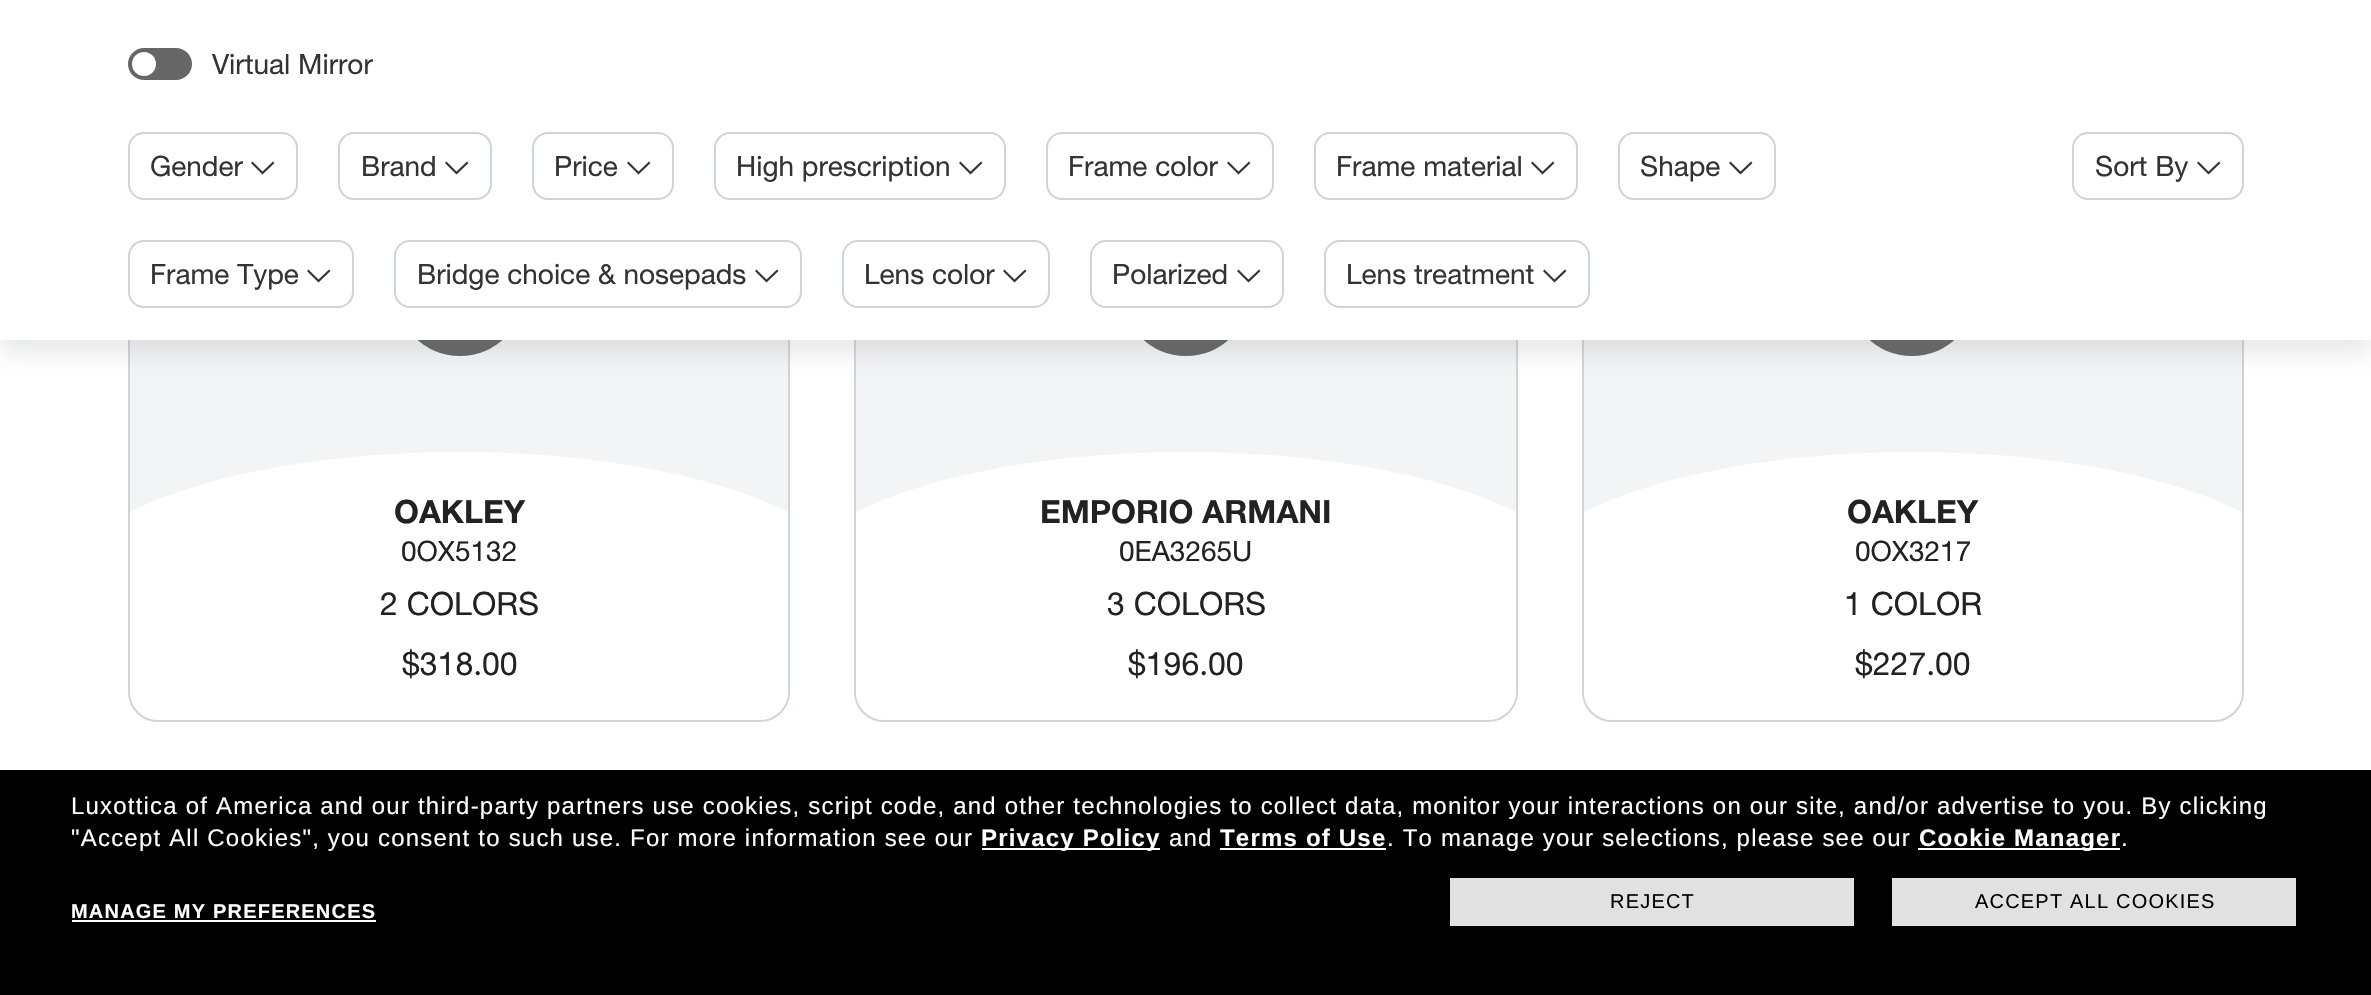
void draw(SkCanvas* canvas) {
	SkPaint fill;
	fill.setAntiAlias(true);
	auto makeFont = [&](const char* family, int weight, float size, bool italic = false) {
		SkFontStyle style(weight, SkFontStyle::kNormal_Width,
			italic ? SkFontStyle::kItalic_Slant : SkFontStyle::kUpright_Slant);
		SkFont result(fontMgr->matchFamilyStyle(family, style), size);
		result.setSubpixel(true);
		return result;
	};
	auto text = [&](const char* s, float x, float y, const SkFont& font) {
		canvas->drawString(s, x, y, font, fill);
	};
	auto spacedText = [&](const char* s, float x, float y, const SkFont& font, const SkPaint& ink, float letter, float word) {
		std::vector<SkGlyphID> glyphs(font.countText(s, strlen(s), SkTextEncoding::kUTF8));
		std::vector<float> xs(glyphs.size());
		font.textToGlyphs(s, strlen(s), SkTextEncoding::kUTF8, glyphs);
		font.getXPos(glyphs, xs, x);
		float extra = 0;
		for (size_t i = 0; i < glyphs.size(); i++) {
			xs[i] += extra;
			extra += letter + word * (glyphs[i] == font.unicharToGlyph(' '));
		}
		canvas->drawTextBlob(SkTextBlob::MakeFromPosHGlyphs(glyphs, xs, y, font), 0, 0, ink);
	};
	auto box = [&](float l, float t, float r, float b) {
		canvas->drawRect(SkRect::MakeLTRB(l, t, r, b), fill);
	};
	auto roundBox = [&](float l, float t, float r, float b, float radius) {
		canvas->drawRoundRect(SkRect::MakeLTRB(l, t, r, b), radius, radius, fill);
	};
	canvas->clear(0xFFFFFFFF);
	fill.setColor(0xFFF3F4F5);
	canvas->drawRoundRect(SkRect::MakeLTRB(129, 59, 789, 721), 29, 29, fill);
	fill.setStyle(SkPaint::kStroke_Style);
	fill.setStrokeWidth(2);
	fill.setColor(0xFFCED4D9);
	canvas->drawRoundRect(SkRect::MakeLTRB(129, 59, 789, 721), 29, 29, fill);
	fill.setStrokeWidth(16);
	fill.setColor(0xFF666666);
	canvas->drawCircle(460, 292, 56, fill);
	fill.setStyle(SkPaint::kFill_Style);
	fill.setColor(0xFFF3F4F5);
	canvas->drawRoundRect(SkRect::MakeLTRB(855, 59, 1517, 721), 29, 29, fill);
	fill.setStyle(SkPaint::kStroke_Style);
	fill.setStrokeWidth(2);
	fill.setColor(0xFFCED4D9);
	canvas->drawRoundRect(SkRect::MakeLTRB(855, 59, 1517, 721), 29, 29, fill);
	fill.setStrokeWidth(16);
	fill.setColor(0xFF666666);
	canvas->drawCircle(1186, 292, 56, fill);
	fill.setStyle(SkPaint::kFill_Style);
	fill.setColor(0xFFF3F4F5);
	canvas->drawRoundRect(SkRect::MakeLTRB(1583, 59, 2243, 721), 29, 29, fill);
	fill.setStyle(SkPaint::kStroke_Style);
	fill.setStrokeWidth(2);
	fill.setColor(0xFFCED4D9);
	canvas->drawRoundRect(SkRect::MakeLTRB(1583, 59, 2243, 721), 29, 29, fill);
	fill.setStrokeWidth(16);
	fill.setColor(0xFF666666);
	canvas->drawCircle(1912, 292, 56, fill);
	fill.setStyle(SkPaint::kFill_Style);
	fill.setColor(0x29606170);
	fill.setMaskFilter(SkMaskFilter::MakeBlur(kNormal_SkBlurStyle, 12));
	canvas->drawRect(SkRect::MakeLTRB(0, 12, 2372, 352), fill);
	fill.setMaskFilter(nullptr);
	fill.setColor(0xFFFFFFFF);
	box(0, 0, 2371, 340);
	fill.setColor(0xFF666666);
	roundBox(128, 48, 192, 80, 16);
	fill.setColor(0xFFFFFFFF);
	canvas->drawCircle(144, 64, 12, fill);
	fill.setStyle(SkPaint::kStroke_Style);
	fill.setStrokeWidth(2);
	fill.setColor(0xFFCED4D9);
	canvas->drawRoundRect(SkRect::MakeLTRB(129, 133, 297, 199), 15, 15, fill);
	fill.setStyle(SkPaint::kFill_Style);
	fill.setColor(0xFF333333);
	canvas->drawPath(SkPathBuilder().moveTo(262.5f, 174.5f).lineTo(251, 163).lineTo(252.5f, 161.5f).lineTo(262.5f, 171.5f).lineTo(273, 161.5f).lineTo(274.5f, 163).close().detach(), fill);
	fill.setStyle(SkPaint::kStroke_Style);
	fill.setColor(0xFFCED4D9);
	canvas->drawRoundRect(SkRect::MakeLTRB(339, 133, 491, 199), 15, 15, fill);
	fill.setStyle(SkPaint::kFill_Style);
	fill.setColor(0xFF333333);
	canvas->drawPath(SkPathBuilder().moveTo(456.5f, 174.5f).lineTo(445, 163).lineTo(446.5f, 161.5f).lineTo(456.5f, 171.5f).lineTo(467, 161.5f).lineTo(468.5f, 163).close().detach(), fill);
	fill.setStyle(SkPaint::kStroke_Style);
	fill.setColor(0xFFCED4D9);
	canvas->drawRoundRect(SkRect::MakeLTRB(533, 133, 673, 199), 15, 15, fill);
	fill.setStyle(SkPaint::kFill_Style);
	fill.setColor(0xFF333333);
	canvas->drawPath(SkPathBuilder().moveTo(638.5f, 174.5f).lineTo(627, 163).lineTo(628.5f, 161.5f).lineTo(638.5f, 171.5f).lineTo(649, 161.5f).lineTo(650.5f, 163).close().detach(), fill);
	fill.setStyle(SkPaint::kStroke_Style);
	fill.setColor(0xFFCED4D9);
	canvas->drawRoundRect(SkRect::MakeLTRB(715, 133, 1005, 199), 15, 15, fill);
	fill.setStyle(SkPaint::kFill_Style);
	fill.setColor(0xFF333333);
	canvas->drawPath(SkPathBuilder().moveTo(970.5f, 174.5f).lineTo(959, 163).lineTo(960.5f, 161.5f).lineTo(970.5f, 171.5f).lineTo(981, 161.5f).lineTo(982.5f, 163).close().detach(), fill);
	fill.setStyle(SkPaint::kStroke_Style);
	fill.setColor(0xFFCED4D9);
	canvas->drawRoundRect(SkRect::MakeLTRB(1047, 133, 1273, 199), 15, 15, fill);
	fill.setStyle(SkPaint::kFill_Style);
	fill.setColor(0xFF333333);
	canvas->drawPath(SkPathBuilder().moveTo(1238.5f, 174.5f).lineTo(1227, 163).lineTo(1228.5f, 161.5f).lineTo(1238.5f, 171.5f).lineTo(1249, 161.5f).lineTo(1250.5f, 163).close().detach(), fill);
	fill.setStyle(SkPaint::kStroke_Style);
	fill.setColor(0xFFCED4D9);
	canvas->drawRoundRect(SkRect::MakeLTRB(1315, 133, 1577, 199), 15, 15, fill);
	fill.setStyle(SkPaint::kFill_Style);
	fill.setColor(0xFF333333);
	canvas->drawPath(SkPathBuilder().moveTo(1542.5f, 174.5f).lineTo(1531, 163).lineTo(1532.5f, 161.5f).lineTo(1542.5f, 171.5f).lineTo(1553, 161.5f).lineTo(1554.5f, 163).close().detach(), fill);
	fill.setStyle(SkPaint::kStroke_Style);
	fill.setColor(0xFFCED4D9);
	canvas->drawRoundRect(SkRect::MakeLTRB(1619, 133, 1775, 199), 15, 15, fill);
	fill.setStyle(SkPaint::kFill_Style);
	fill.setColor(0xFF333333);
	canvas->drawPath(SkPathBuilder().moveTo(1740.5f, 174.5f).lineTo(1729, 163).lineTo(1730.5f, 161.5f).lineTo(1740.5f, 171.5f).lineTo(1751, 161.5f).lineTo(1752.5f, 163).close().detach(), fill);
	fill.setStyle(SkPaint::kStroke_Style);
	fill.setColor(0xFFCED4D9);
	canvas->drawRoundRect(SkRect::MakeLTRB(129, 241, 353, 307), 15, 15, fill);
	fill.setStyle(SkPaint::kFill_Style);
	fill.setColor(0xFF333333);
	canvas->drawPath(SkPathBuilder().moveTo(318.5f, 282.5f).lineTo(307, 271).lineTo(308.5f, 269.5f).lineTo(318.5f, 279.5f).lineTo(329, 269.5f).lineTo(330.5f, 271).close().detach(), fill);
	fill.setStyle(SkPaint::kStroke_Style);
	fill.setColor(0xFFCED4D9);
	canvas->drawRoundRect(SkRect::MakeLTRB(395, 241, 801, 307), 15, 15, fill);
	fill.setStyle(SkPaint::kFill_Style);
	fill.setColor(0xFF333333);
	canvas->drawPath(SkPathBuilder().moveTo(766.5f, 282.5f).lineTo(755, 271).lineTo(756.5f, 269.5f).lineTo(766.5f, 279.5f).lineTo(777, 269.5f).lineTo(778.5f, 271).close().detach(), fill);
	fill.setStyle(SkPaint::kStroke_Style);
	fill.setColor(0xFFCED4D9);
	canvas->drawRoundRect(SkRect::MakeLTRB(843, 241, 1049, 307), 15, 15, fill);
	fill.setStyle(SkPaint::kFill_Style);
	fill.setColor(0xFF333333);
	canvas->drawPath(SkPathBuilder().moveTo(1014.5f, 282.5f).lineTo(1003, 271).lineTo(1004.5f, 269.5f).lineTo(1014.5f, 279.5f).lineTo(1025, 269.5f).lineTo(1026.5f, 271).close().detach(), fill);
	fill.setStyle(SkPaint::kStroke_Style);
	fill.setColor(0xFFCED4D9);
	canvas->drawRoundRect(SkRect::MakeLTRB(1091, 241, 1283, 307), 15, 15, fill);
	fill.setStyle(SkPaint::kFill_Style);
	fill.setColor(0xFF333333);
	canvas->drawPath(SkPathBuilder().moveTo(1248.5f, 282.5f).lineTo(1237, 271).lineTo(1238.5f, 269.5f).lineTo(1248.5f, 279.5f).lineTo(1259, 269.5f).lineTo(1260.5f, 271).close().detach(), fill);
	fill.setStyle(SkPaint::kStroke_Style);
	fill.setColor(0xFFCED4D9);
	canvas->drawRoundRect(SkRect::MakeLTRB(1325, 241, 1589, 307), 15, 15, fill);
	fill.setStyle(SkPaint::kFill_Style);
	fill.setColor(0xFF333333);
	canvas->drawPath(SkPathBuilder().moveTo(1554.5f, 282.5f).lineTo(1543, 271).lineTo(1544.5f, 269.5f).lineTo(1554.5f, 279.5f).lineTo(1565, 269.5f).lineTo(1566.5f, 271).close().detach(), fill);
	fill.setStyle(SkPaint::kStroke_Style);
	fill.setColor(0xFFCED4D9);
	canvas->drawRoundRect(SkRect::MakeLTRB(2073, 133, 2243, 199), 15, 15, fill);
	fill.setStyle(SkPaint::kFill_Style);
	fill.setColor(0xFF333333);
	canvas->drawPath(SkPathBuilder().moveTo(2208.5f, 174.5f).lineTo(2197, 163).lineTo(2198.5f, 161.5f).lineTo(2208.5f, 171.5f).lineTo(2219, 161.5f).lineTo(2220.5f, 163).close().detach(), fill);
	fill.setColor(0xFFFFFFFF);
	canvas->drawPath(SkPathBuilder().moveTo(459, 452).cubicTo(322, 452, 201, 476, 130, 512).lineTo(130, 692).cubicTo(130, 707, 143, 720, 158, 720).lineTo(760, 720).cubicTo(775, 720, 788, 707, 788, 692).lineTo(788, 512).cubicTo(717, 476, 596, 452, 459, 452).close().detach(), fill);
	canvas->drawPath(SkPathBuilder().moveTo(1186, 452).cubicTo(1048, 452, 927, 476, 856, 512).lineTo(856, 692).cubicTo(856, 707, 869, 720, 884, 720).lineTo(1488, 720).cubicTo(1503, 720, 1516, 707, 1516, 692).lineTo(1516, 512).cubicTo(1445, 476, 1324, 452, 1186, 452).close().detach(), fill);
	canvas->drawPath(SkPathBuilder().moveTo(1913, 452).cubicTo(1776, 452, 1655, 476, 1584, 512).lineTo(1584, 692).cubicTo(1584, 707, 1597, 720, 1612, 720).lineTo(2214, 720).cubicTo(2229, 720, 2242, 707, 2242, 692).lineTo(2242, 512).cubicTo(2171, 476, 2050, 452, 1913, 452).close().detach(), fill);
	fill.setColor(0xFF000000);
	box(0, 770, 2371, 995);
	fill.setColor(0xFFFFFFFF);
	box(982, 848, 1160, 850);
	box(1220, 848, 1386, 850);
	box(1918, 848, 2120, 850);
	fill.setColor(0xFFE1E1E1);
	box(1450, 878, 1854, 926);
	box(1892, 878, 2296, 926);
	fill.setColor(0xFFFFFFFF);
	box(72, 920, 376, 922);
	auto font1 = makeFont("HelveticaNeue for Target", 400, 28);
	fill.setColor(0xFF333333);
	text("Virtual Mirror", 212, 74, font1);
	text("Gender", 150, 176, font1);
	text("Brand", 361, 176, font1);
	text("Price", 554, 176, font1);
	text("High prescription", 736, 176, font1);
	text("Frame color", 1068, 176, font1);
	text("Frame material", 1336, 176, font1);
	text("Shape", 1640, 176, font1);
	text("Frame Type", 150, 284, font1);
	text("Bridge choice & nosepads", 417, 284, font1);
	text("Lens color", 864, 284, font1);
	text("Polarized", 1112, 284, font1);
	text("Lens treatment", 1346, 284, font1);
	text("Sort By", 2095, 176, font1);
	auto font2 = makeFont("HelveticaNeue for Target", 700, 32);
	fill.setColor(0xFF222222);
	text("OAKLEY", 394, 523, font2);
	text("0OX5132", 401, 561, font1);
	auto font3 = makeFont("HelveticaNeue for Target", 400, 32);
	text("2 COLORS", 380, 615, font3);
	text("$318.00", 402, 675, font3);
	text("EMPORIO ARMANI", 1040, 523, font2);
	text("0EA3265U", 1119, 561, font1);
	text("3 COLORS", 1107, 615, font3);
	text("$196.00", 1128, 675, font3);
	text("OAKLEY", 1847, 523, font2);
	text("0OX3217", 1855, 561, font1);
	text("1 COLOR", 1844, 615, font3);
	text("$227.00", 1855, 675, font3);
	auto font4 = makeFont("Liberation Sans", 400, 24);
	fill.setColor(0xFFFFFFFF);
	spacedText("Luxottica of America and our third-party partners use cookies, script code, and other technologies to collect data, monitor your interactions on our site, and/or advertise to you. By clicking", 71, 814, font4, fill, 1.2f, 0);
	spacedText("\"Accept All Cookies\", you consent to such use. For more information see our", 71, 846, font4, fill, 1.2f, 0);
	auto font5 = makeFont("Liberation Sans", 700, 24);
	spacedText("Privacy Policy", 981, 846, font5, fill, 1.2f, 0);
	spacedText("and", 1169, 846, font4, fill, 1.2f, 0);
	spacedText("Terms of Use", 1220, 846, font5, fill, 1.2f, 0);
	spacedText(". To manage your selections, please see our", 1387, 846, font4, fill, 1.2f, 0);
	spacedText("Cookie Manager", 1919, 846, font5, fill, 1.2f, 0);
	spacedText(".", 2121, 846, font4, fill, 1.2f, 0);
	auto font6 = makeFont("Liberation Sans", 400, 20);
	fill.setColor(0xFF000000);
	spacedText("REJECT", 1610, 908, font6, fill, 1.2f, 0);
	spacedText("ACCEPT ALL COOKIES", 1975, 908, font6, fill, 1.2f, 0);
	auto font7 = makeFont("Liberation Sans", 700, 20);
	fill.setColor(0xFFFFFFFF);
	spacedText("MANAGE MY PREFERENCES", 71, 918, font7, fill, 1.2f, 0);
}
